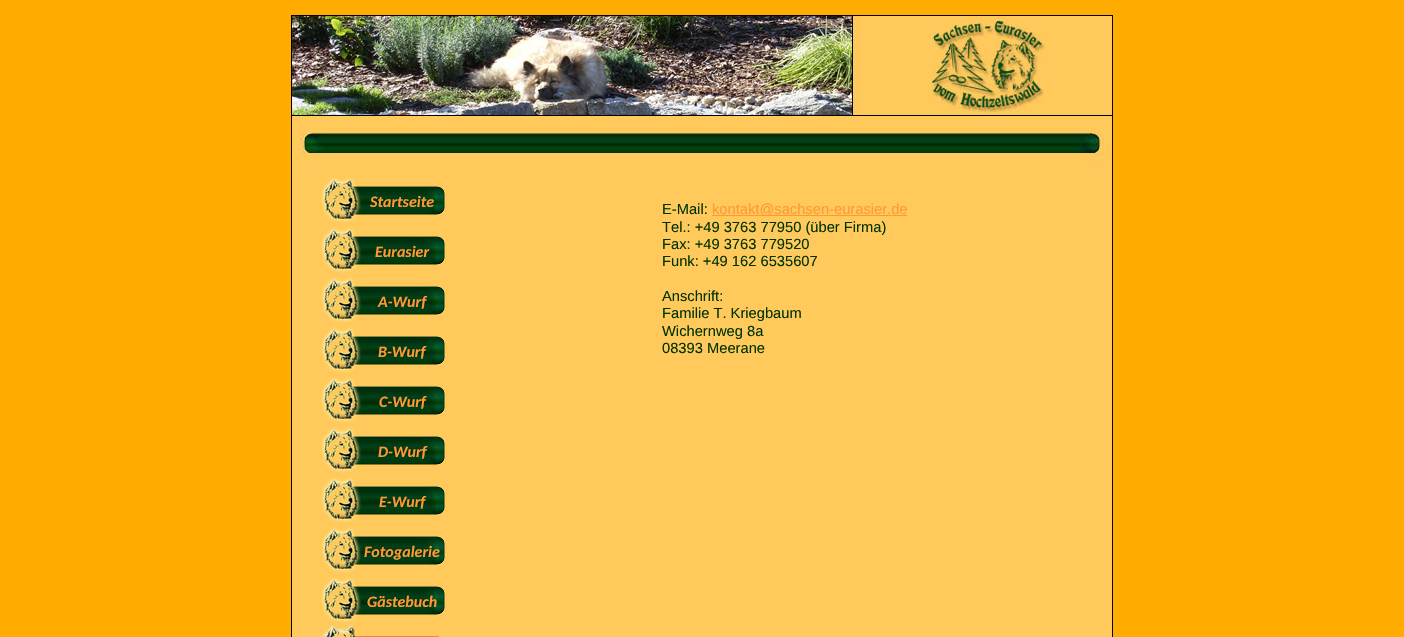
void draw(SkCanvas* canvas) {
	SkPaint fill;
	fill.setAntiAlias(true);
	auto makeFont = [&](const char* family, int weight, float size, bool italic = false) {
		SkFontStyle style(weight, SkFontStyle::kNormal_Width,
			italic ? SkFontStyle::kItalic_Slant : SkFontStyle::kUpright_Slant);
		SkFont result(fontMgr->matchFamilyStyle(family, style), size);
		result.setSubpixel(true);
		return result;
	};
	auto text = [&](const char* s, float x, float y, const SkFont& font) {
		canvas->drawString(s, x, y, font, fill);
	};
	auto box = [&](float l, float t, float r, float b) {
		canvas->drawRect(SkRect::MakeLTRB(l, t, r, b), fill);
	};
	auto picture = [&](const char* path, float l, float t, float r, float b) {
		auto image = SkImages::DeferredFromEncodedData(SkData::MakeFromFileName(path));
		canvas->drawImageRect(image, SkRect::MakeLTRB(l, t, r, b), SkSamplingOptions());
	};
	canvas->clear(0xFFFFAB00);
	fill.setColor(0xFFFFC95C);
	box(292, 116, 1112, 637);
	fill.setStyle(SkPaint::kStroke_Style);
	fill.setStrokeWidth(1);
	fill.setColor(0xFF000000);
	canvas->drawRect(SkRect::MakeLTRB(291.5f, 15.5f, 1112.5f, 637.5f), fill);
	picture("image0.png", 292, 16, 852, 116);
	picture("image1.png", 852, 16, 1112, 116);
	picture("image2.png", 292, 133, 1108, 163);
	picture("image3.png", 321, 177, 445, 223);
	picture("image3.png", 321, 227, 445, 273);
	picture("image3.png", 321, 277, 445, 323);
	picture("image3.png", 321, 327, 445, 373);
	picture("image3.png", 321, 377, 445, 423);
	picture("image3.png", 321, 427, 445, 473);
	picture("image3.png", 321, 477, 445, 523);
	picture("image3.png", 321, 527, 445, 573);
	picture("image3.png", 321, 577, 445, 623);
	picture("image4.png", 321, 625, 439, 637);
	fill.setStyle(SkPaint::kFill_Style);
	fill.setColor(0xFFFF9933);
	box(712, 215, 907, 216);
	auto font1 = makeFont("Carlito", 700, 16, true);
	text("Startseite", 370, 207, font1);
	text("Eurasier", 375, 257, font1);
	text("A-Wurf", 378, 307, font1);
	text("B-Wurf", 378, 357, font1);
	text("C-Wurf", 379, 407, font1);
	text("D-Wurf", 378, 457, font1);
	text("E-Wurf", 379, 507, font1);
	text("Fotogalerie", 364, 557, font1);
	text("Gästebuch", 367, 607, font1);
	auto font2 = makeFont("Liberation Sans", 400, 14.7f);
	fill.setColor(0xFF003300);
	text("E-Mail:", 662, 214, font2);
	fill.setColor(0xFFFF9933);
	text("kontakt@sachsen-eurasier.de", 712, 214, font2);
	fill.setColor(0xFF003300);
	text("Tel.: +49 3763 77950 (über Firma)", 662, 232, font2);
	text("Fax: +49 3763 779520", 662, 249, font2);
	text("Funk: +49 162 6535607", 662, 266, font2);
	text("Anschrift:", 662, 301, font2);
	text("Familie T. Kriegbaum", 662, 318, font2);
	text("Wichernweg 8a", 662, 336, font2);
	text("08393 Meerane", 662, 353, font2);
}
